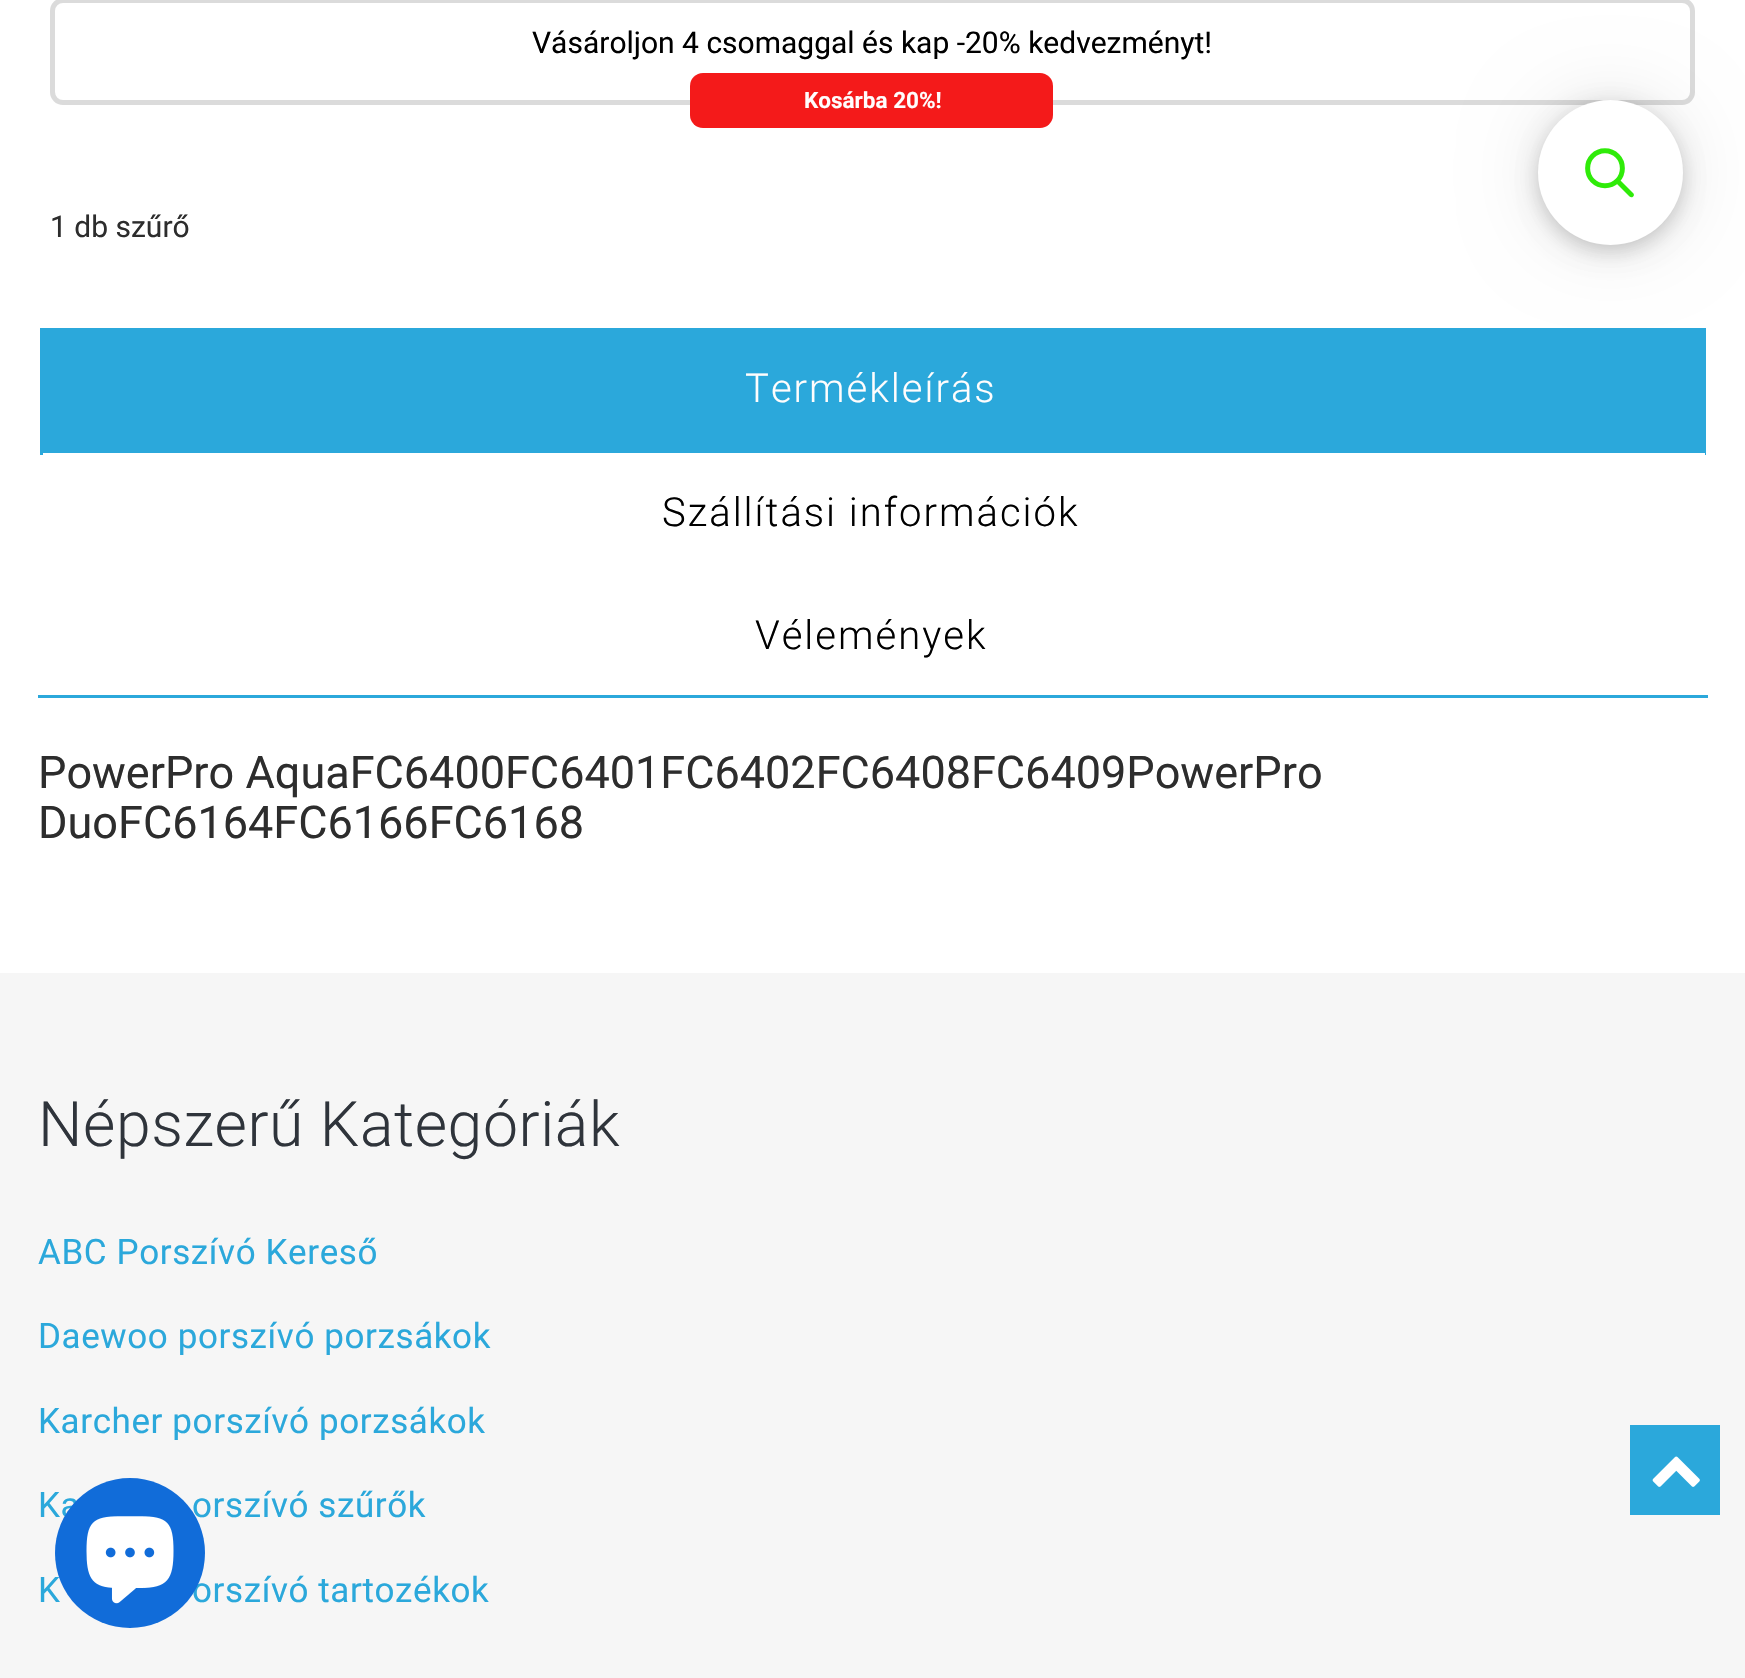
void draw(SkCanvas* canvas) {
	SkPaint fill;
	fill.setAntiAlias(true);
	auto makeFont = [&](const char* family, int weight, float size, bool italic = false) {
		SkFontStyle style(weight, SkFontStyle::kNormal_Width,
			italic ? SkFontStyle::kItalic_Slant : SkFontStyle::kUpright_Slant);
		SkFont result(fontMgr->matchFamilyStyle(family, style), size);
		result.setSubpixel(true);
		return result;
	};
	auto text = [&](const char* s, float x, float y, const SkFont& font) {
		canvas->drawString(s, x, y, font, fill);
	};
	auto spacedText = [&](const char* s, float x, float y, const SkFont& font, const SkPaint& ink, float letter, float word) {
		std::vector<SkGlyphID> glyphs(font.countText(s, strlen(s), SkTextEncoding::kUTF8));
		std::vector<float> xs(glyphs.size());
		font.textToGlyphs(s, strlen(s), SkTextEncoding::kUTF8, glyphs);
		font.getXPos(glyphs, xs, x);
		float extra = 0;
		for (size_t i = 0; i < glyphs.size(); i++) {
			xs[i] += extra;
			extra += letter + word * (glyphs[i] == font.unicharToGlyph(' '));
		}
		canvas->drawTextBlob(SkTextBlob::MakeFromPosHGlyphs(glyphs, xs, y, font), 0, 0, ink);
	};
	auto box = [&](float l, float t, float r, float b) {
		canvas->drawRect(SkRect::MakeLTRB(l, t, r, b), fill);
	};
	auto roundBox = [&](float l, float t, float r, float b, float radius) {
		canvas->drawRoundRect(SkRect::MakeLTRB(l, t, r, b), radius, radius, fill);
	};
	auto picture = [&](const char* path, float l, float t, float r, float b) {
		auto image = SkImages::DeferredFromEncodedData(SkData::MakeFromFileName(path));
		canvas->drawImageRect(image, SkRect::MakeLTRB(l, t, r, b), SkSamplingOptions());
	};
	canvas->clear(0xFFFFFFFF);
	fill.setStyle(SkPaint::kStroke_Style);
	fill.setStrokeWidth(5);
	fill.setColor(0xFFDBDBDB);
	canvas->drawRoundRect(SkRect::MakeLTRB(52.5f, 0.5f, 1692.5f, 102.5f), 10.5f, 10.5f, fill);
	fill.setStyle(SkPaint::kFill_Style);
	fill.setColor(0xFFF41A1A);
	roundBox(690, 73, 1053, 128, 13);
	fill.setColor(0xFF2BA8DB);
	box(38, 695, 1708, 698);
	box(43, 328, 1703, 453);
	box(1703, 328, 1706, 455);
	fill.setColor(0xFFFFFFFF);
	box(1703, 453, 1705, 455);
	fill.setColor(0xFF2BA8DB);
	box(40, 328, 43, 455);
	fill.setColor(0xFFF6F6F6);
	box(0, 973, 1745, 1678);
	fill.setColor(0xFF2BA8DB);
	box(1630, 1425, 1720, 1515);
	picture("image0.png", 1652, 1456, 1700, 1487);
	fill.setColor(0x0D000000);
	fill.setMaskFilter(SkMaskFilter::MakeBlur(kNormal_SkBlurStyle, 10));
	canvas->drawRoundRect(SkRect::MakeLTRB(1538, 110, 1683, 255), 72.5f, 72.5f, fill);
	fill.setMaskFilter(nullptr);
	fill.setColor(0x26000000);
	fill.setMaskFilter(SkMaskFilter::MakeBlur(kNormal_SkBlurStyle, 10));
	canvas->drawRoundRect(SkRect::MakeLTRB(1538, 105, 1683, 250), 72.5f, 72.5f, fill);
	fill.setMaskFilter(nullptr);
	fill.setColor(0x1A000000);
	fill.setMaskFilter(SkMaskFilter::MakeBlur(kNormal_SkBlurStyle, 37.5f));
	canvas->drawRoundRect(SkRect::MakeLTRB(1538, 100, 1683, 245), 72.5f, 72.5f, fill);
	fill.setMaskFilter(nullptr);
	fill.setColor(0xFFFFFFFF);
	canvas->drawCircle(1610.5f, 172.5f, 72.5f, fill);
	fill.setStyle(SkPaint::kStroke_Style);
	fill.setColor(0xFF2FEB09);
	canvas->drawPath(SkPathBuilder().moveTo(1592.5f, 156).cubicTo(1599.5f, 149, 1610.5f, 149, 1617.5f, 156).cubicTo(1624, 162.5f, 1624, 174, 1617.5f, 180.5f).cubicTo(1610.5f, 187.5f, 1599.5f, 187.5f, 1592.5f, 180.5f).cubicTo(1586, 174, 1586, 162.5f, 1592.5f, 156).close().detach(), fill);
	fill.setStyle(SkPaint::kFill_Style);
	canvas->drawPath(SkPathBuilder().moveTo(1615.5f, 182.5f).lineTo(1619, 179).lineTo(1633.5f, 193.5f).cubicTo(1635, 196, 1632, 198.5f, 1629.5f, 196.5f).close().detach(), fill);
	auto font1 = makeFont("Roboto", 400, 30);
	fill.setColor(0xFF000000);
	text("Vásároljon 4 csomaggal és kap -20% kedvezményt!", 532, 53, font1);
	auto font2 = makeFont("Roboto", 700, 22.5f);
	fill.setColor(0xFFFFFDFD);
	text("Kosárba 20%!", 804, 108, font2);
	fill.setColor(0xFF2D2D2D);
	text("1 db szűrő", 50, 237, font1);
	auto font3 = makeFont("Roboto", 300, 40);
	fill.setColor(0xFFFFFDFD);
	spacedText("Termékleírás", 745, 402, font3, fill, 2, 0);
	fill.setColor(0xFF000000);
	spacedText("Szállítási információk", 662, 526, font3, fill, 2, 0);
	spacedText("Vélemények", 755, 649, font3, fill, 2, 0);
	auto font4 = makeFont("Roboto", 400, 45);
	fill.setColor(0xFF2D2D2D);
	text("PowerPro AquaFC6400FC6401FC6402FC6408FC6409PowerPro", 38, 788, font4);
	text("DuoFC6164FC6166FC6168", 38, 838, font4);
	auto font5 = makeFont("Roboto", 300, 62.5f);
	fill.setColor(0xFF2F343B);
	spacedText("Népszerű Kategóriák", 38, 1146, font5, fill, 0.6f, 0);
	auto font6 = makeFont("Roboto", 400, 35);
	fill.setColor(0xFF2BA8DB);
	spacedText("ABC Porszívó Kereső", 38, 1264, font6, fill, 0.6f, 0);
	spacedText("Daewoo porszívó porzsákok", 38, 1348, font6, fill, 0.6f, 0);
	spacedText("Karcher porszívó porzsákok", 38, 1433, font6, fill, 0.6f, 0);
	spacedText("Ka", 38, 1517, font6, fill, 0.6f, 0);
	spacedText("orszívó szűrők", 192, 1517, font6, fill, 0.6f, 0);
	spacedText("K", 38, 1602, font6, fill, 0.6f, 0);
	spacedText("orszívó tartozékok", 192, 1602, font6, fill, 0.6f, 0);
	fill.setColor(0xFF116CD9);
	canvas->drawCircle(130, 1553, 75, fill);
	picture("image1.png", 86, 1516, 174, 1604);
}
